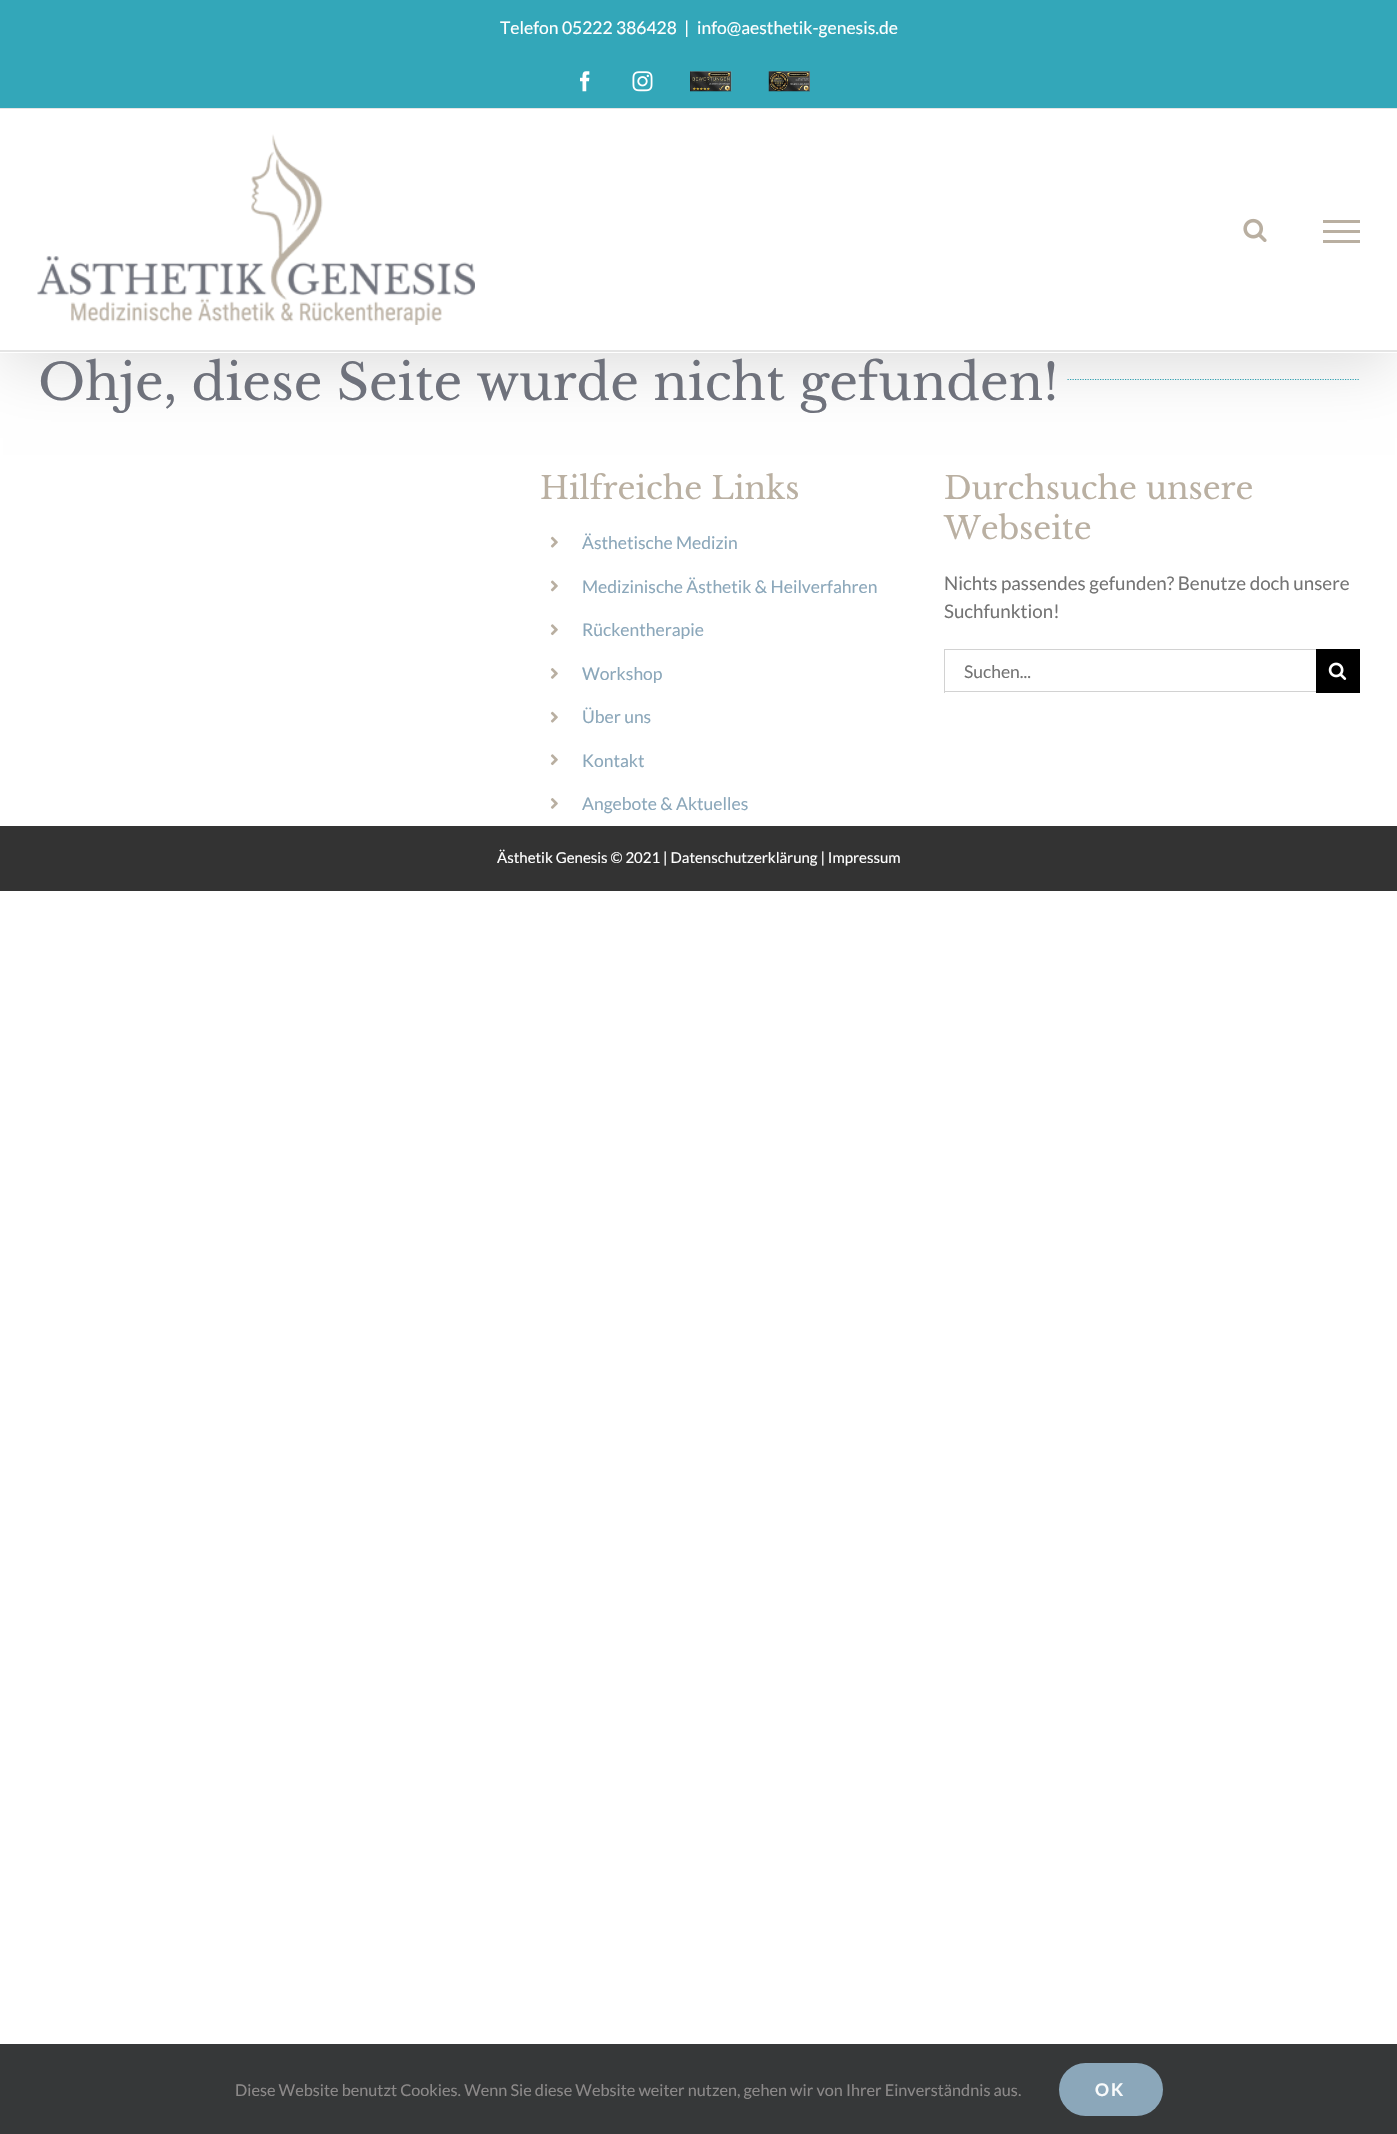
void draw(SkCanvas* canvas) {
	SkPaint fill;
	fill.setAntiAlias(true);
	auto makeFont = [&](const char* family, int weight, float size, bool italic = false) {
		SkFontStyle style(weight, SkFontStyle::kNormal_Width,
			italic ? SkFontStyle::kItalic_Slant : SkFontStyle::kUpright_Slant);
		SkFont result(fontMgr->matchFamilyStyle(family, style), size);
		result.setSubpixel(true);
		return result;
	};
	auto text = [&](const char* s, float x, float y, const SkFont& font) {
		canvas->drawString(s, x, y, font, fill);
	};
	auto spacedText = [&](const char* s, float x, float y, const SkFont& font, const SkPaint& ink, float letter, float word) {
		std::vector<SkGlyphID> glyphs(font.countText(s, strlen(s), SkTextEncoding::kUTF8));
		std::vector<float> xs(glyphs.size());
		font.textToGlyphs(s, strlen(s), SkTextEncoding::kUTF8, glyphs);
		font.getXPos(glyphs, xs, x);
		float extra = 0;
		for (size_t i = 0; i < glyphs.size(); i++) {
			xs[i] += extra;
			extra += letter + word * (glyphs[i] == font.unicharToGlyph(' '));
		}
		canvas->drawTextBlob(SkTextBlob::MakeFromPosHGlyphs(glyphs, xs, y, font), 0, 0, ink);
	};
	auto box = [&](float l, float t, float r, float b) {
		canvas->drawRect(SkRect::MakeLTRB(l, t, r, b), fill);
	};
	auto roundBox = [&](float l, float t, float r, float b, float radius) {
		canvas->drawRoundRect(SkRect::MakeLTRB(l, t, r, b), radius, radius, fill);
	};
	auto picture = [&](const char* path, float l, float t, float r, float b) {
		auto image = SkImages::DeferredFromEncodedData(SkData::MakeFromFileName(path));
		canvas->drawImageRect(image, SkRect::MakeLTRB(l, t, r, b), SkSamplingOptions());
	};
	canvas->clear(0xFFFFFFFF);
	fill.setStyle(SkPaint::kStroke_Style);
	fill.setStrokeWidth(1.2f);
	fill.setColor(0xFF33A7B9);
	fill.setPathEffect(SkDashPathEffect::Make({{1.25f, 1.25f}}, 0));
	canvas->drawPath(SkPathBuilder().moveTo(1067.5f, 379.5f).lineTo(1360, 379.5f).detach(), fill);
	fill.setPathEffect(nullptr);
	canvas->save();
	canvas->clipPath(SkPathBuilder(SkPathFillType::kEvenOdd).moveTo(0, 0).lineTo(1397, 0).lineTo(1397, 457).lineTo(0, 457).close().moveTo(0, 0).lineTo(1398, 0).lineTo(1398, 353).lineTo(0, 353).close().detach(), true);
	fill.setStyle(SkPaint::kFill_Style);
	fill.setColor(0x24000000);
	fill.setMaskFilter(SkMaskFilter::MakeBlur(kNormal_SkBlurStyle, 31));
	canvas->drawRect(SkRect::MakeLTRB(3, 15, 1395, 363), fill);
	fill.setMaskFilter(nullptr);
	canvas->restore();
	fill.setColor(0xFF33A7B9);
	box(0, 0, 1397, 108);
	fill.setColor(0xFFE5E5E5);
	box(0, 108, 1397, 109);
	picture("image0.png", 580, 71, 590, 92);
	picture("image1.png", 632, 71, 653, 92);
	picture("image2.png", 690, 71, 732, 92);
	picture("image3.png", 768, 71, 810, 92);
	box(0, 350, 1397, 352);
	picture("image4.png", 37, 134, 475, 325);
	picture("image5.png", 1243, 218, 1267, 242);
	fill.setColor(0xFFB9AFA1);
	box(1323, 220, 1360, 223);
	box(1323, 230, 1360, 233);
	box(1323, 240, 1360, 243);
	picture("image6.png", 550, 536, 558, 548);
	picture("image7.png", 550, 580, 558, 592);
	picture("image8.png", 550, 624, 558, 636);
	picture("image9.png", 550, 668, 558, 679);
	picture("image6.png", 550, 711, 558, 723);
	picture("image8.png", 550, 754, 558, 766);
	picture("image9.png", 550, 798, 558, 809);
	fill.setColor(0xFFD2D2D2);
	box(944, 649, 1316, 650);
	box(944, 691, 1316, 692);
	box(944, 649, 945, 693);
	fill.setColor(0xFF000000);
	box(1316, 649, 1360, 693);
	picture("image10.png", 1328, 662, 1347, 680);
	fill.setColor(0xFF333333);
	box(0, 826, 1397, 891);
	fill.setColor(0xFF363839);
	box(0, 2044, 1397, 2134);
	fill.setColor(0xFF8BA7BA);
	roundBox(1059, 2063, 1163, 2116, 26.5f);
	auto font1 = makeFont("Lato", 400, 17.5f);
	fill.setColor(0xFFFFFFFF);
	text("Telefon 05222 386428", 500, 34, font1);
	text("|", 684, 34, font1);
	text("info@aesthetik-genesis.de", 697, 34, font1);
	auto font2 = makeFont("Libre Baskerville", 400, 50);
	fill.setColor(0xFF6F727C);
	text("Ohje, diese Seite wurde nicht gefunden!", 38, 400, font2);
	auto font3 = makeFont("Libre Baskerville", 400, 31.25f);
	fill.setColor(0xFFBAB0A2);
	text("Hilfreiche Links", 540, 499, font3);
	fill.setColor(0xFF8BA7BA);
	text("Ästhetische Medizin", 582, 549, font1);
	text("Medizinische Ästhetik & Heilverfahren", 582, 593, font1);
	text("Rückentherapie", 582, 636, font1);
	text("Workshop", 582, 680, font1);
	text("Über uns", 582, 723, font1);
	text("Kontakt", 582, 767, font1);
	text("Angebote & Aktuelles", 582, 810, font1);
	fill.setColor(0xFFBAB0A2);
	text("Durchsuche unsere", 944, 499, font3);
	text("Webseite", 944, 539, font3);
	auto font4 = makeFont("Lato", 400, 18.75f);
	fill.setColor(0xFF747474);
	text("Nichts passendes gefunden? Benutze doch unsere", 944, 590, font4);
	text("Suchfunktion!", 944, 618, font4);
	text("Suchen...", 964, 678, font1);
	auto font5 = makeFont("Lato", 400, 15);
	fill.setColor(0xFFFFFFFF);
	text("Ästhetik Genesis © 2021 | Datenschutzerklärung | Impressum", 497, 863, font5);
	auto font6 = makeFont("Lato", 400, 16.25f);
	fill.setColor(0xFF8C8989);
	text("Diese Website benutzt Cookies. Wenn Sie diese Website weiter nutzen, gehen wir von Ihrer Einverständnis aus.", 235, 2096, font6);
	auto font7 = makeFont("Lato", 700, 17.5f);
	fill.setColor(0xFFF9FBFC);
	spacedText("OK", 1095, 2096, font7, fill, 2, 0);
}
